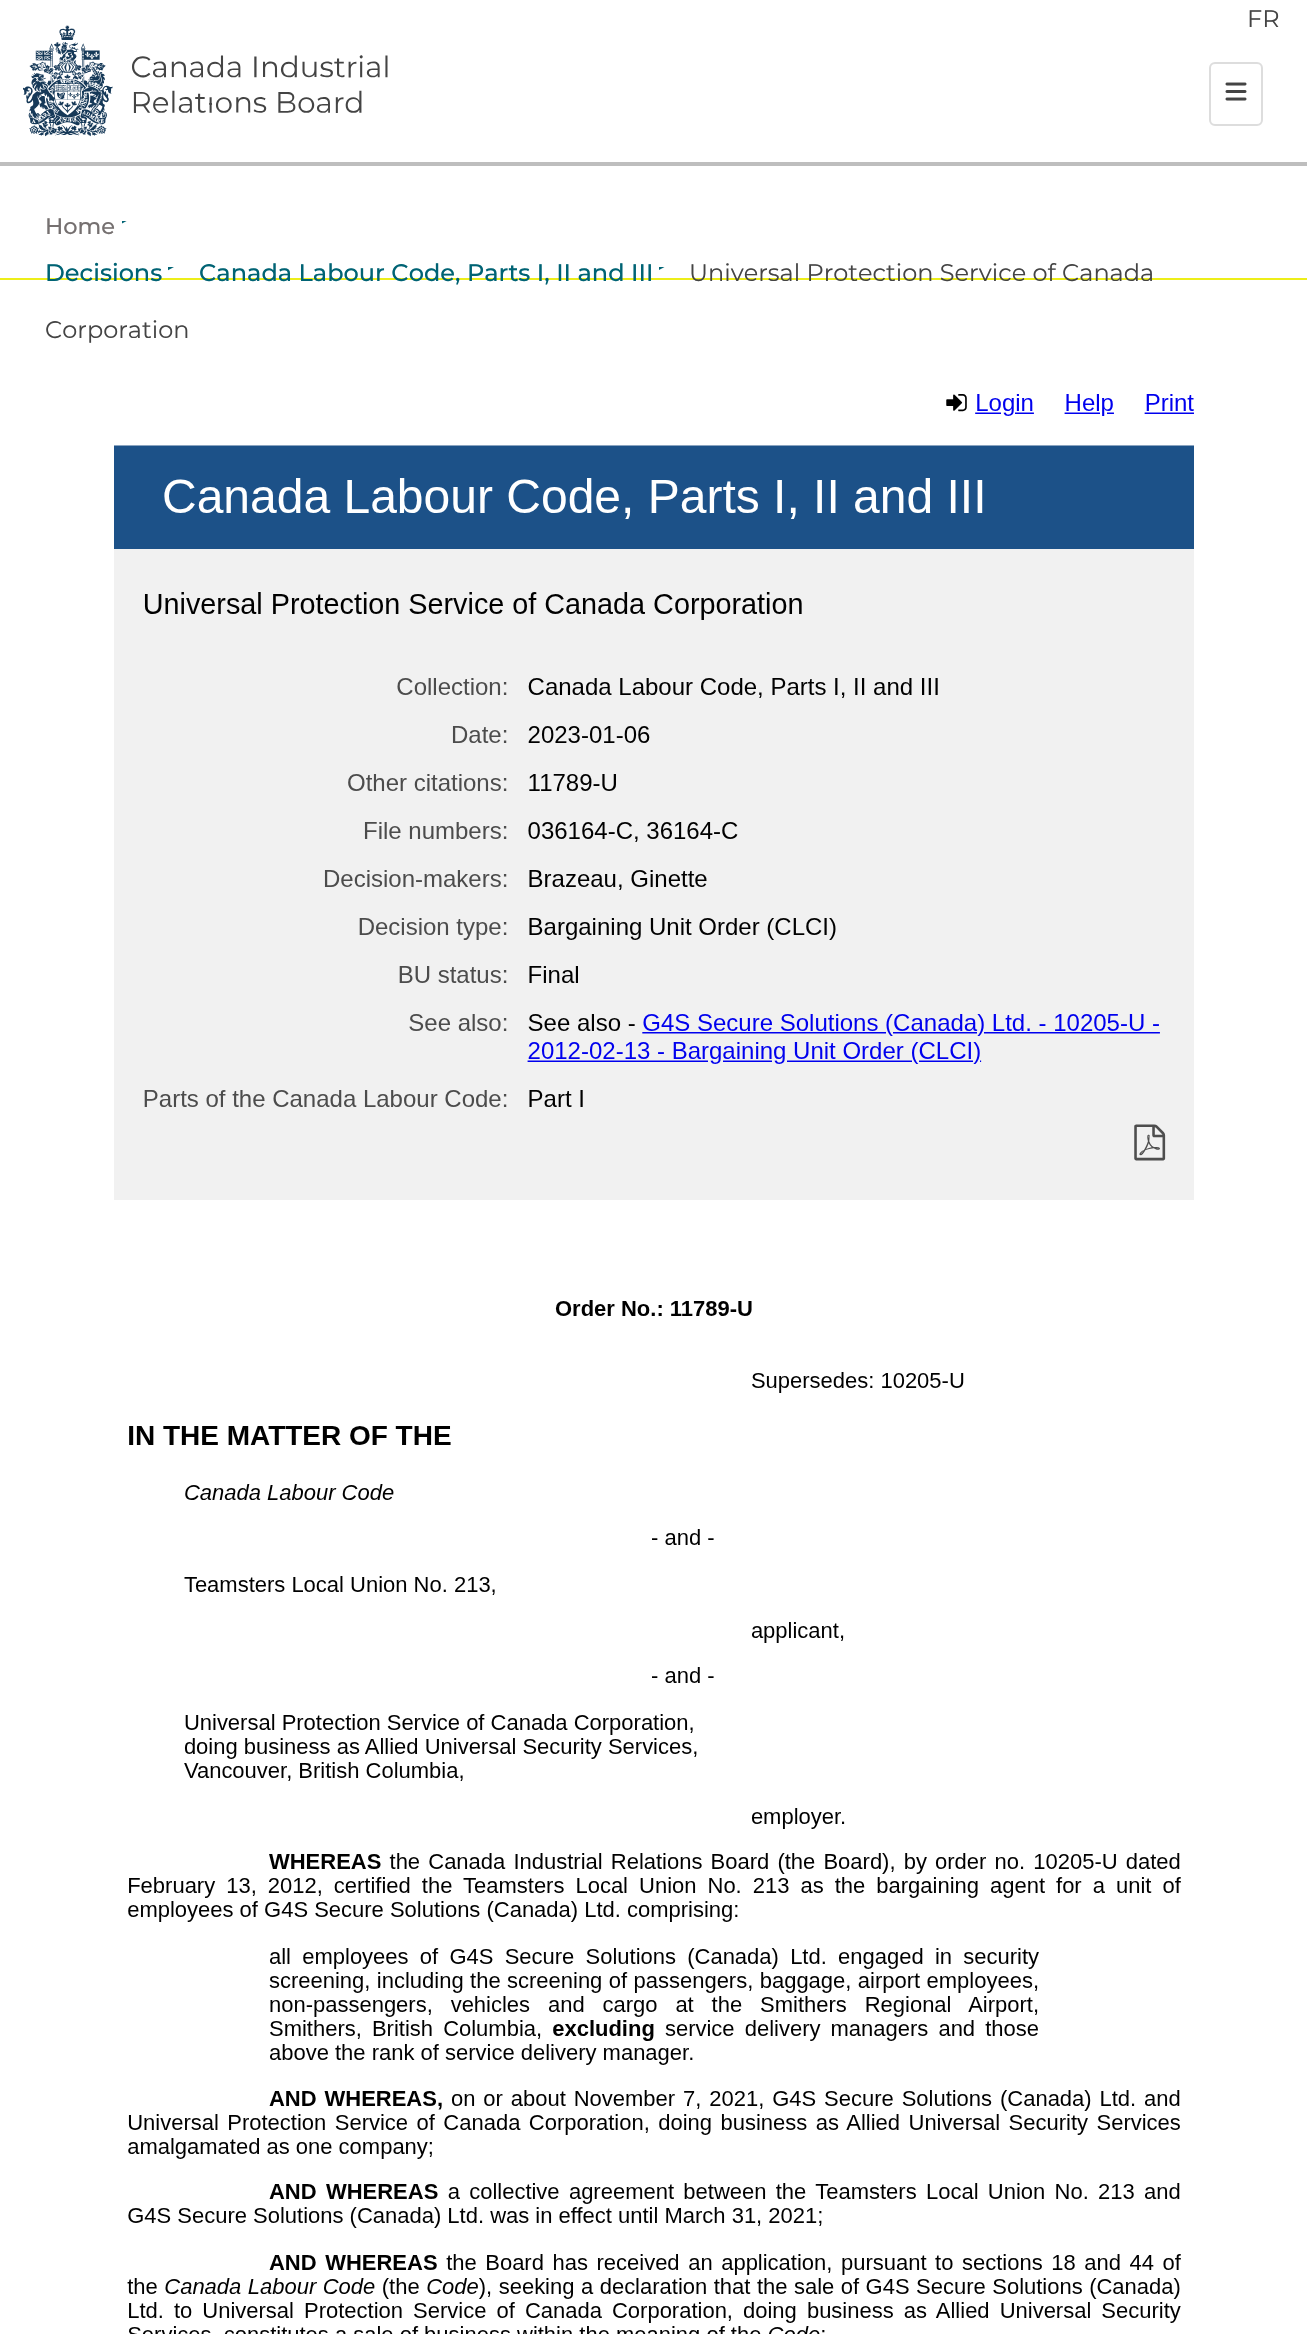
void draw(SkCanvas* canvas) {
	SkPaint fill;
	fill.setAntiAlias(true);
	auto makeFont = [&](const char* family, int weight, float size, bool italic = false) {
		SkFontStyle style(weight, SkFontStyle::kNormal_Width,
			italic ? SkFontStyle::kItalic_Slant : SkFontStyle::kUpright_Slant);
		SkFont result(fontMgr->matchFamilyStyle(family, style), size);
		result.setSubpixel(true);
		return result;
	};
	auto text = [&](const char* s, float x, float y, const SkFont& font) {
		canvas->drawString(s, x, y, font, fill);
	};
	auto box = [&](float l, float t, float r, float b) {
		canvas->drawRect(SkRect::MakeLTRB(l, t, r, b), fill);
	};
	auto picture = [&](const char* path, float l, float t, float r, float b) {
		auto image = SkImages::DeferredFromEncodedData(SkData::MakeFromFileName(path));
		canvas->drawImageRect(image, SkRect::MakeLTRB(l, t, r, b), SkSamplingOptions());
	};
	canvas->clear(0xFFFFFFFF);
	picture("image0.png", 23, 25, 388, 137);
	fill.setStyle(SkPaint::kStroke_Style);
	fill.setStrokeWidth(2);
	fill.setColor(0xFFDDDDDD);
	canvas->drawRoundRect(SkRect::MakeLTRB(1210, 63, 1262, 125), 5, 5, fill);
	picture("image1.png", 1225, 82, 1247, 101);
	fill.setStyle(SkPaint::kFill_Style);
	fill.setColor(0xFFBEBEBE);
	box(0, 162, 1307, 166);
	fill.setColor(0xFFEDEE19);
	box(0, 278, 1307, 280);
	canvas->save();
	canvas->clipRect(SkRect::MakeLTRB(122, 221, 129, 228));
	fill.setColor(0xFF006374);
	canvas->drawPath(SkPathBuilder().moveTo(127.5f, 220.5f).lineTo(114, 213).lineTo(114, 228).close().detach(), fill);
	canvas->restore();
	canvas->save();
	canvas->clipRect(SkRect::MakeLTRB(168, 267, 176, 275));
	canvas->drawPath(SkPathBuilder().moveTo(174, 267).lineTo(160.5f, 259.5f).lineTo(160.5f, 274.5f).close().detach(), fill);
	canvas->restore();
	canvas->save();
	canvas->clipRect(SkRect::MakeLTRB(659, 267, 666, 275));
	canvas->drawPath(SkPathBuilder().moveTo(664.5f, 267).lineTo(651, 259.5f).lineTo(651, 274.5f).close().detach(), fill);
	canvas->restore();
	picture("image2.png", 114, 394, 1194, 2334);
	auto font1 = makeFont("Montserrat", 100, 24);
	fill.setColor(0xFF444444);
	text("FR", 1247, 27, font1);
	auto font2 = makeFont("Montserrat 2", 100, 22.5f);
	fill.setColor(0xFF757070);
	text("Home", 45, 234, font2);
	auto font3 = makeFont("Montserrat 2", 100, 24);
	fill.setColor(0xFF006374);
	text("Decisions", 45, 281, font3);
	text("Canada Labour Code, Parts I, II and III", 199, 281, font3);
	fill.setColor(0xFF444444);
	text("Universal Protection Service of Canada", 689, 281, font1);
	text("Corporation", 45, 338, font1);
}
